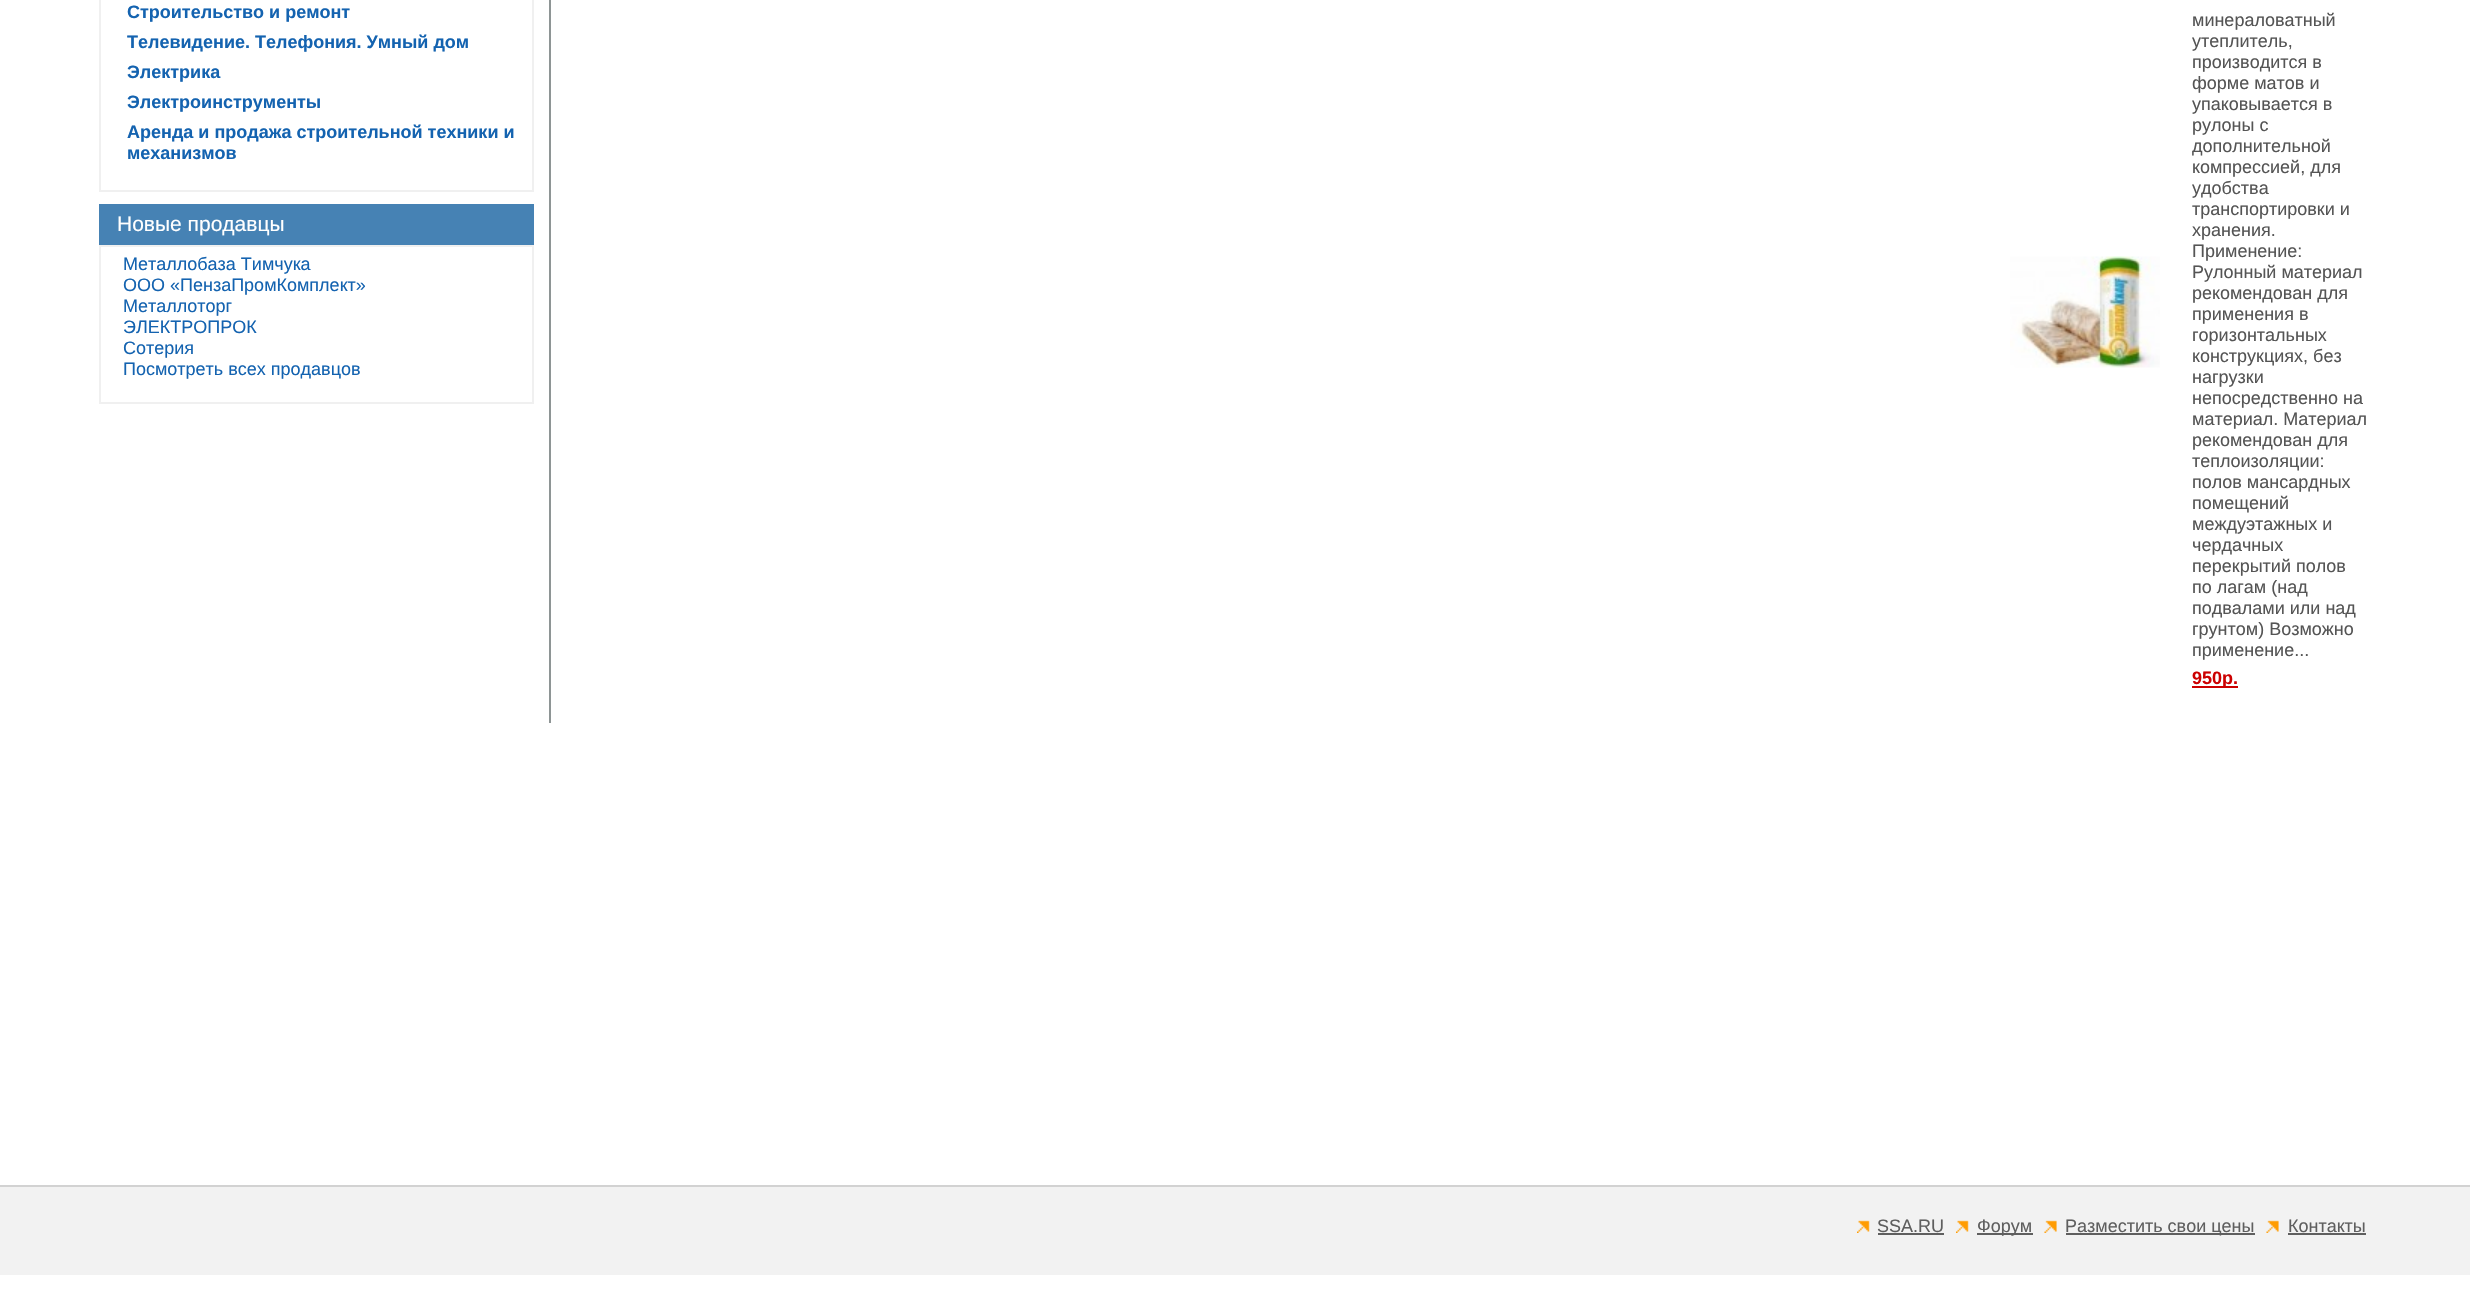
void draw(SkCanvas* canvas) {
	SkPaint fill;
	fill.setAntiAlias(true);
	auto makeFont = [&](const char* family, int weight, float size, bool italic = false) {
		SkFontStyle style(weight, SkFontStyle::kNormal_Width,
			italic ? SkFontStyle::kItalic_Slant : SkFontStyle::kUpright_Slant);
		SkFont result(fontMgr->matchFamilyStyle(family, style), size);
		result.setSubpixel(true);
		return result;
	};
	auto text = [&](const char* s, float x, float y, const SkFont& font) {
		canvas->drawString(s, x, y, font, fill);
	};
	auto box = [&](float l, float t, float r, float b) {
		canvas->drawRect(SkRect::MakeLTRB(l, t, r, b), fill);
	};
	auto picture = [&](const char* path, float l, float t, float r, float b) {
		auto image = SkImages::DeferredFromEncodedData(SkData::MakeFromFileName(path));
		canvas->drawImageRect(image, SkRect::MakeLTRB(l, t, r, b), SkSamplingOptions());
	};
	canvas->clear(0xFFFFFFFF);
	fill.setStyle(SkPaint::kStroke_Style);
	fill.setStrokeWidth(2);
	fill.setColor(0xFFF0F0F0);
	canvas->drawRect(SkRect::MakeLTRB(100, -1, 533, 191), fill);
	fill.setStyle(SkPaint::kFill_Style);
	fill.setColor(0xFF4682B4);
	box(99, 204, 534, 245);
	fill.setStyle(SkPaint::kStroke_Style);
	fill.setColor(0xFFF0F0F0);
	canvas->drawRect(SkRect::MakeLTRB(100, 246, 533, 403), fill);
	fill.setStyle(SkPaint::kFill_Style);
	fill.setColor(0xFF8E9595);
	box(549, 0, 551, 723);
	picture("image0.png", 2010, 256, 2160, 368);
	fill.setColor(0xFFCC0000);
	box(2192, 686, 2238, 688);
	fill.setColor(0xFFF2F2F2);
	box(0, 1187, 2470, 1275);
	fill.setColor(0xFFD2D2D2);
	box(0, 1185, 2470, 1187);
	picture("image1.png", 1857, 1220, 1870, 1233);
	fill.setColor(0xFF5F5F5F);
	box(1878, 1233, 1944, 1235);
	picture("image1.png", 1956, 1220, 1969, 1233);
	box(1977, 1233, 2033, 1235);
	picture("image2.png", 2044, 1220, 2057, 1233);
	box(2066, 1233, 2255, 1235);
	picture("image2.png", 2266, 1220, 2279, 1233);
	box(2288, 1233, 2366, 1235);
	auto font1 = makeFont("Liberation Sans", 700, 18);
	fill.setColor(0xFF1463B0);
	text("Строительство и ремонт", 127, 18, font1);
	text("Телевидение. Телефония. Умный дом", 127, 48, font1);
	text("Электрика", 127, 78, font1);
	text("Электроинструменты", 127, 108, font1);
	text("Аренда и продажа строительной техники и", 127, 138, font1);
	text("механизмов", 127, 159, font1);
	auto font2 = makeFont("Liberation Sans", 400, 21);
	fill.setColor(0xFFFFFFFF);
	text("Новые продавцы", 117, 231, font2);
	auto font3 = makeFont("Liberation Sans", 400, 18);
	fill.setColor(0xFF1463B0);
	text("Металлобаза Тимчука", 123, 270, font3);
	text("ООО «ПензаПромКомплект»", 123, 291, font3);
	text("Металлоторг", 123, 312, font3);
	text("ЭЛЕКТРОПРОК", 123, 333, font3);
	text("Сотерия", 123, 354, font3);
	text("Посмотреть всех продавцов", 123, 375, font3);
	fill.setColor(0xFF555555);
	text("минераловатный", 2192, 26, font3);
	text("утеплитель,", 2192, 47, font3);
	text("производится в", 2192, 68, font3);
	text("форме матов и", 2192, 89, font3);
	text("упаковывается в", 2192, 110, font3);
	text("рулоны с", 2192, 131, font3);
	text("дополнительной", 2192, 152, font3);
	text("компрессией, для", 2192, 173, font3);
	text("удобства", 2192, 194, font3);
	text("транспортировки и", 2192, 215, font3);
	text("хранения.", 2192, 236, font3);
	text("Применение:", 2192, 257, font3);
	text("Рулонный материал", 2192, 278, font3);
	text("рекомендован для", 2192, 299, font3);
	text("применения в", 2192, 320, font3);
	text("горизонтальных", 2192, 341, font3);
	text("конструкциях, без", 2192, 362, font3);
	text("нагрузки", 2192, 383, font3);
	text("непосредственно на", 2192, 404, font3);
	text("материал. Материал", 2192, 425, font3);
	text("рекомендован для", 2192, 446, font3);
	text("теплоизоляции:", 2192, 467, font3);
	text("полов мансардных", 2192, 488, font3);
	text("помещений", 2192, 509, font3);
	text("междуэтажных и", 2192, 530, font3);
	text("чердачных", 2192, 551, font3);
	text("перекрытий полов", 2192, 572, font3);
	text("по лагам (над", 2192, 593, font3);
	text("подвалами или над", 2192, 614, font3);
	text("грунтом) Возможно", 2192, 635, font3);
	text("применение...", 2192, 656, font3);
	fill.setColor(0xFFCC0000);
	text("950р.", 2192, 684, font1);
	fill.setColor(0xFF5F5F5F);
	text("SSA.RU", 1877, 1232, font3);
	text("Форум", 1977, 1232, font3);
	text("Разместить свои цены", 2065, 1232, font3);
	text("Контакты", 2288, 1232, font3);
}
